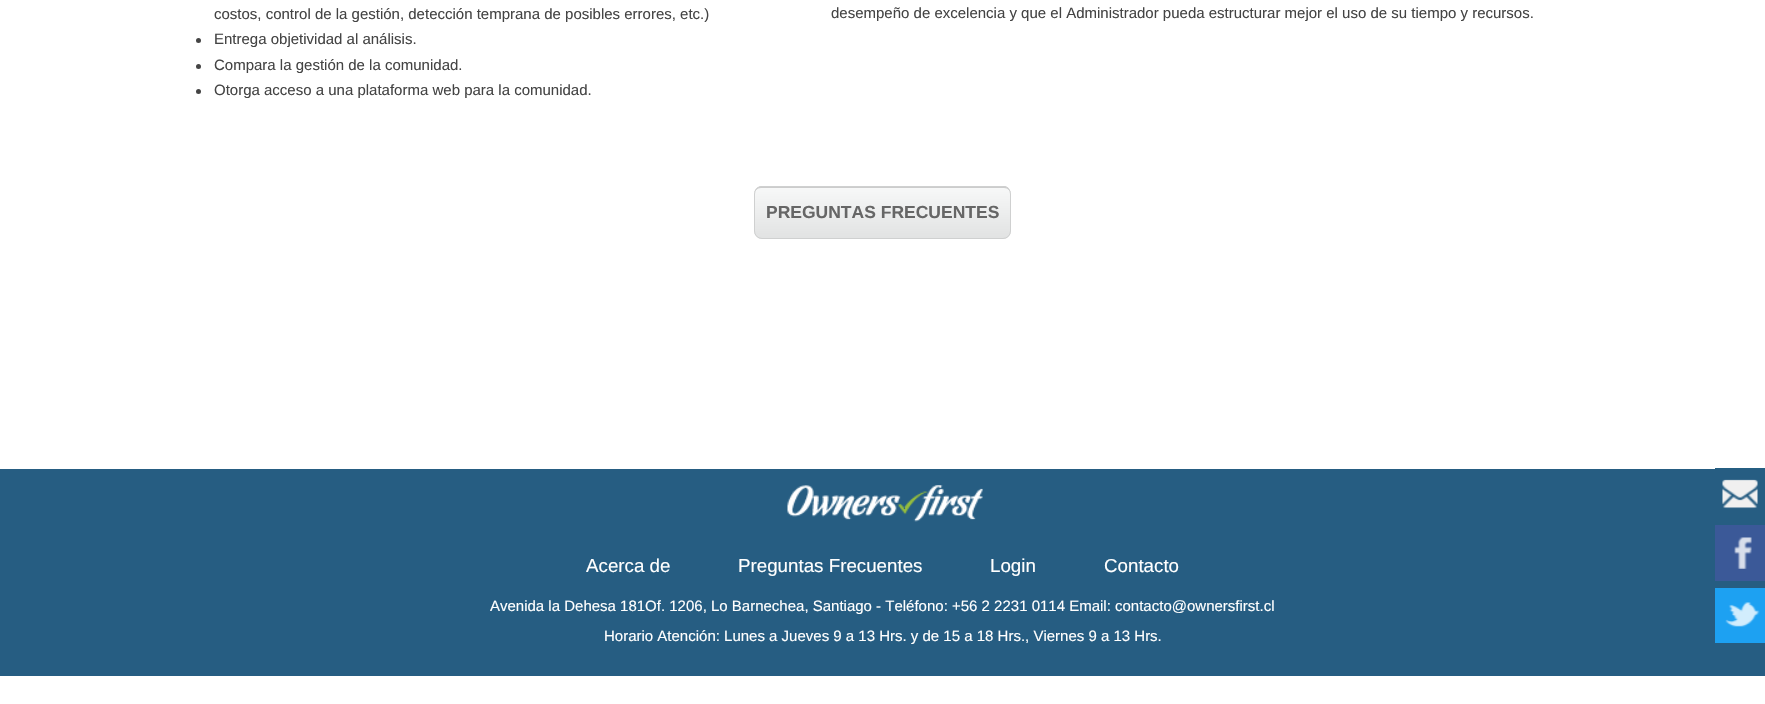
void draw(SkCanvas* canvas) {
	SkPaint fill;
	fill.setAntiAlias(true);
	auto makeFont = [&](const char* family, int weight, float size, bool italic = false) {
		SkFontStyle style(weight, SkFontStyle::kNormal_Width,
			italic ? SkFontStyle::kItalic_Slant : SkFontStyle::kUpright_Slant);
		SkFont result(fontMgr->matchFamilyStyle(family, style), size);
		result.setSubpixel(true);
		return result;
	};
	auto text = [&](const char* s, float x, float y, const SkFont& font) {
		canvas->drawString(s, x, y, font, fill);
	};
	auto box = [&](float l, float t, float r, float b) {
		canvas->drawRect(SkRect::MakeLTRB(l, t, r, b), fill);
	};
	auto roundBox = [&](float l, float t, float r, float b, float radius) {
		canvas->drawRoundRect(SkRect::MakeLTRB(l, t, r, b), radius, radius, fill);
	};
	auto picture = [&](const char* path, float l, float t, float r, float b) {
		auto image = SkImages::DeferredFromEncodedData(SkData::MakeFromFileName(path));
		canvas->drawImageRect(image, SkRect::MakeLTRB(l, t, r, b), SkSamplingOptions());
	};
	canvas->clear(0xFFFFFFFF);
	fill.setColor(0xFF444444);
	canvas->drawCircle(198.5f, 40.5f, 2.5f, fill);
	canvas->drawCircle(198.5f, 66.5f, 2.5f, fill);
	canvas->drawCircle(198.5f, 91.5f, 2.5f, fill);
	{
		const SkColor colors[] = {0xFFF8F9F9, 0xFFE1E2E2};
		const float stops[] = {0, 1};
		const SkPoint ends[] = {{883, 186}, {883, 239}};
		fill.setShader(SkGradientShader::MakeLinear(ends, colors, stops, 2, SkTileMode::kClamp));
		fill.setAlpha(255);
	}
	roundBox(754, 186, 1011, 239, 8);
	fill.setShader(nullptr);
	fill.setColor(0xFFCCCCCC);
	canvas->drawPath(SkPathBuilder().moveTo(761, 188).lineTo(1004, 188).cubicTo(1008, 188, 1011, 191, 1011, 195).cubicTo(1011, 191, 1009, 187, 1005, 186).lineTo(762, 186).cubicTo(757, 186, 754, 190, 754, 195).cubicTo(754, 191, 757, 188, 761, 188).close().detach(), fill);
	fill.setStyle(SkPaint::kStroke_Style);
	fill.setStrokeWidth(1);
	fill.setColor(0xFFCFD0D0);
	canvas->drawRoundRect(SkRect::MakeLTRB(754.5f, 186.5f, 1010.5f, 238.5f), 7.5f, 7.5f, fill);
	fill.setStyle(SkPaint::kFill_Style);
	fill.setColor(0xFF255F82);
	box(1715, 468, 1765, 469);
	fill.setColor(0xFF265D82);
	box(0, 469, 1765, 676);
	picture("image0.png", 1722, 479, 1758, 509);
	fill.setColor(0xFF3B5998);
	box(1715, 525, 1765, 581);
	picture("image1.png", 1734, 537, 1752, 569);
	fill.setColor(0xFF1DA1F2);
	box(1715, 588, 1765, 643);
	picture("image2.png", 1725, 602, 1760, 627);
	picture("image3.png", 787, 485, 983, 522);
	auto font1 = makeFont("Liberation Sans", 400, 15);
	fill.setColor(0xFF444444);
	text("costos, control de la gestión, detección temprana de posibles errores, etc.)", 214, 19, font1);
	text("Entrega objetividad al análisis.", 214, 44, font1);
	text("Compara la gestión de la comunidad.", 214, 70, font1);
	text("Otorga acceso a una plataforma web para la comunidad.", 214, 95, font1);
	text("desempeño de excelencia y que el Administrador pueda estructurar mejor el uso de su tiempo y recursos.", 831, 18, font1);
	auto font2 = makeFont("Liberation Sans", 700, 17.5f);
	fill.setColor(0xFF666666);
	text("PREGUNTAS FRECUENTES", 766, 218, font2);
	auto font3 = makeFont("Liberation Sans", 400, 18.75f);
	fill.setColor(0xFFFFFFFF);
	text("Acerca de", 586, 572, font3);
	text("Preguntas Frecuentes", 738, 572, font3);
	text("Login", 990, 572, font3);
	text("Contacto", 1104, 572, font3);
	text("Avenida la Dehesa 181Of. 1206, Lo Barnechea, Santiago - Teléfono: +56 2 2231 0114 Email: contacto@ownersfirst.cl", 490, 611, font1);
	text("Horario Atención: Lunes a Jueves 9 a 13 Hrs. y de 15 a 18 Hrs., Viernes 9 a 13 Hrs.", 604, 641, font1);
}
